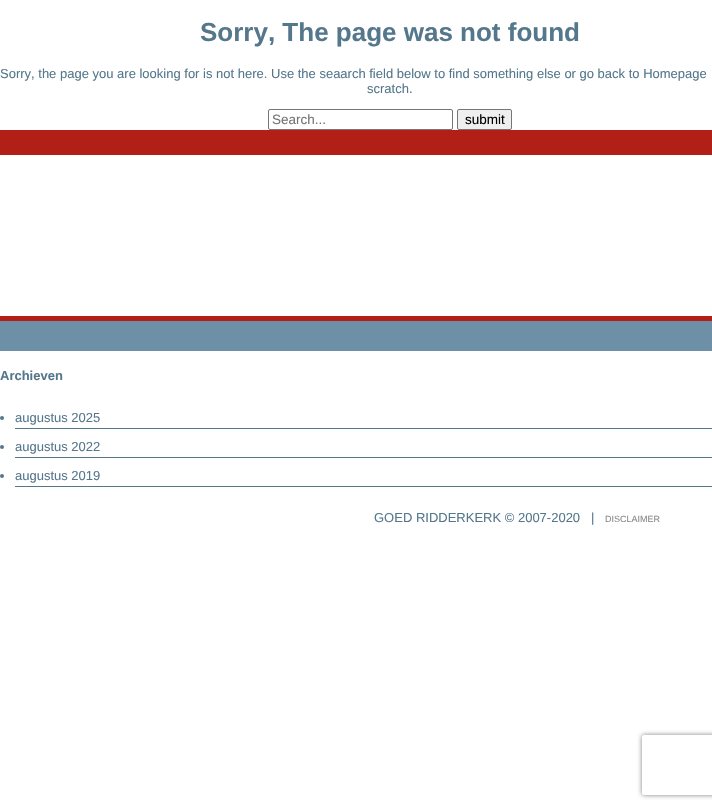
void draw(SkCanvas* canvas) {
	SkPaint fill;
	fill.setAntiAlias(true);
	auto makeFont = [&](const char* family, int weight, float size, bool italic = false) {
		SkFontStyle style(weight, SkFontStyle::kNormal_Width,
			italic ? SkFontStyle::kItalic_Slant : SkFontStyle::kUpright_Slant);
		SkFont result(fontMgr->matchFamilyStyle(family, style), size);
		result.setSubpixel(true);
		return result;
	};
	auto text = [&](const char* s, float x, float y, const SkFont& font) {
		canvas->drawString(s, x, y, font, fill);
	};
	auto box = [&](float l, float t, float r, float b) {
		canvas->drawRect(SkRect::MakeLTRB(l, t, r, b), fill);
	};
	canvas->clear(0xFFFFFFFF);
	fill.setStyle(SkPaint::kStroke_Style);
	fill.setStrokeWidth(1);
	fill.setColor(0xFF767676);
	canvas->drawRoundRect(SkRect::MakeLTRB(268.5f, 109.5f, 452.5f, 129.5f), 1.5f, 1.5f, fill);
	fill.setStyle(SkPaint::kFill_Style);
	fill.setColor(0xFFEFEFEF);
	canvas->drawRoundRect(SkRect::MakeLTRB(457.5f, 109.5f, 511.5f, 129.5f), 1.5f, 1.5f, fill);
	fill.setStyle(SkPaint::kStroke_Style);
	fill.setColor(0xFF767676);
	canvas->drawRoundRect(SkRect::MakeLTRB(457.5f, 109.5f, 511.5f, 129.5f), 1.5f, 1.5f, fill);
	fill.setStyle(SkPaint::kFill_Style);
	fill.setColor(0xFFB11F16);
	box(0, 130, 712, 155);
	box(0, 316, 712, 321);
	fill.setColor(0xFF6D90A6);
	box(0, 321, 712, 351);
	fill.setColor(0xFF55778C);
	box(15, 428, 712, 429);
	canvas->drawCircle(2, 418, 2, fill);
	box(15, 457, 712, 458);
	canvas->drawCircle(2, 447, 2, fill);
	box(15, 486, 712, 487);
	canvas->drawCircle(2, 476, 2, fill);
	canvas->save();
	canvas->clipPath(SkPathBuilder(SkPathFillType::kEvenOdd).moveTo(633, 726).lineTo(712, 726).lineTo(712, 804).lineTo(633, 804).close().moveTo(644, 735).lineTo(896, 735).cubicTo(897, 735, 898, 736, 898, 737).lineTo(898, 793).cubicTo(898, 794, 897, 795, 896, 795).lineTo(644, 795).cubicTo(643, 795, 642, 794, 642, 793).lineTo(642, 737).cubicTo(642, 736, 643, 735, 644, 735).close().detach(), true);
	fill.setColor(0xFF808080);
	fill.setMaskFilter(SkMaskFilter::MakeBlur(kNormal_SkBlurStyle, 2.5f));
	canvas->drawRoundRect(SkRect::MakeLTRB(642, 735, 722, 795), 2, 2, fill);
	fill.setMaskFilter(nullptr);
	canvas->restore();
	auto font1 = makeFont("Liberation Sans", 700, 26);
	fill.setColor(0xFF55778C);
	text("Sorry, The page was not found", 200, 41, font1);
	auto font2 = makeFont("Liberation Sans", 400, 13);
	text("Sorry, the page you are looking for is not here. Use the seaarch field below to find something else or go back to Homepage", 0, 78, font2);
	text("scratch.", 367, 93, font2);
	auto font3 = makeFont("Liberation Sans", 400, 13.5f);
	fill.setColor(0xFF757575);
	text("Search...", 272, 124, font3);
	fill.setColor(0xFF000000);
	text("submit", 465, 124, font3);
	auto font4 = makeFont("Liberation Sans", 700, 13);
	fill.setColor(0xFF55778C);
	text("Archieven", 0, 380, font4);
	text("augustus 2025", 15, 422, font2);
	text("augustus 2022", 15, 451, font2);
	text("augustus 2019", 15, 480, font2);
	text("GOED RIDDERKERK © 2007-2020", 374, 522, font2);
	text("|", 591, 522, font2);
	auto font5 = makeFont("Liberation Sans", 400, 9);
	fill.setColor(0xFF888888);
	text("DISCLAIMER", 605, 522, font5);
}
